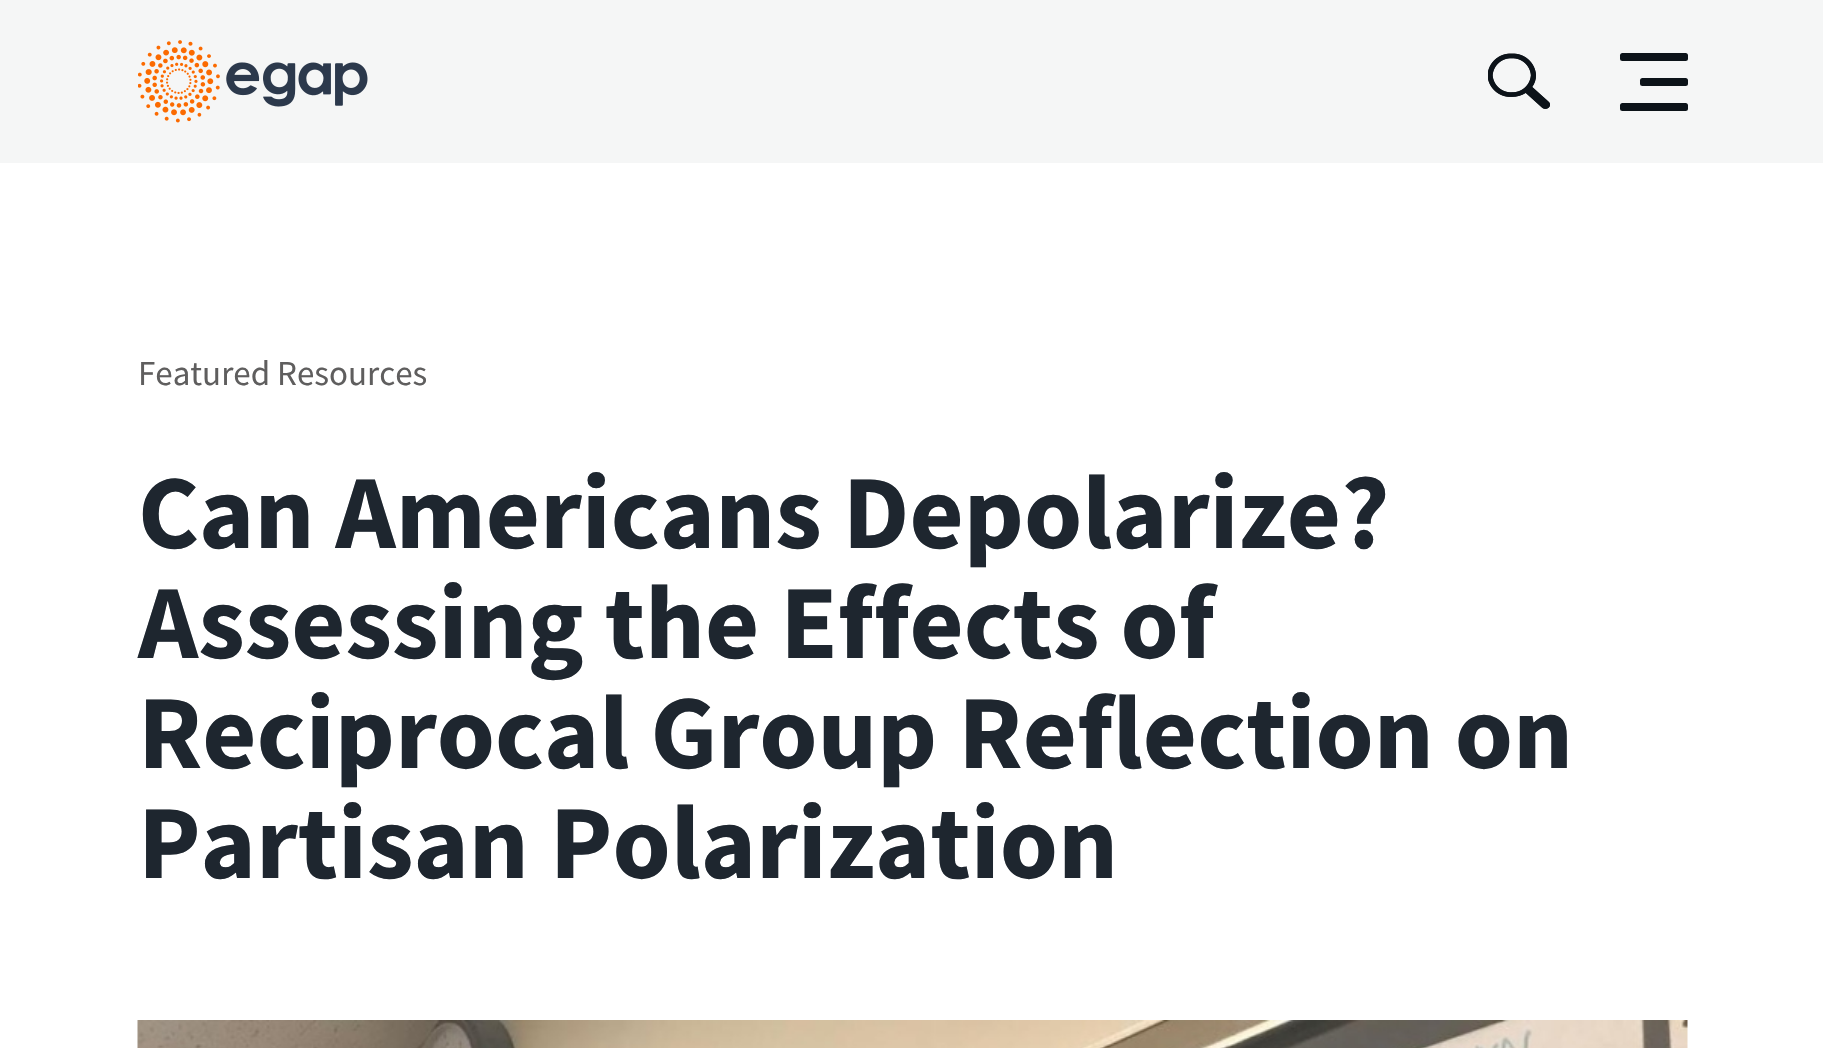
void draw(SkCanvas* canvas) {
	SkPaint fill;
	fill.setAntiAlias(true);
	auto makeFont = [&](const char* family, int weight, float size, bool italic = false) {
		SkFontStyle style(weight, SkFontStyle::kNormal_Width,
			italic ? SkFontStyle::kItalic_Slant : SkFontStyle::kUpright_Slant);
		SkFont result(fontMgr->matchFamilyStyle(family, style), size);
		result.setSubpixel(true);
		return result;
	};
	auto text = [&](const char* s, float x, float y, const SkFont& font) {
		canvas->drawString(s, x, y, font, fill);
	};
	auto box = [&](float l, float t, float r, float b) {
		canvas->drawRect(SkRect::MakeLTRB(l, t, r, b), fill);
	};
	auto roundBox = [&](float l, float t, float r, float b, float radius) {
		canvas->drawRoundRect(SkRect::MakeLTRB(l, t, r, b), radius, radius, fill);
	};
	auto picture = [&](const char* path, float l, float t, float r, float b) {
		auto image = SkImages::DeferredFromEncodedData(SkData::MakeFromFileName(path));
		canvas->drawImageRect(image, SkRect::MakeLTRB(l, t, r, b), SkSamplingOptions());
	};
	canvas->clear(0xFFFFFFFF);
	fill.setColor(0xFFF5F6F6);
	box(0, 0, 1823, 163);
	picture("image0.png", 138, 40, 368, 123);
	picture("image1.png", 1488, 53, 1550, 109);
	fill.setColor(0xFF0C1319);
	roundBox(1620, 53, 1688, 61, 2.5f);
	roundBox(1640, 78, 1688, 86, 2.5f);
	roundBox(1620, 103, 1688, 111, 2.5f);
	picture("image2.png", 137, 1020, 1688, 1048);
	auto font1 = makeFont("Source Sans Pro", 400, 35);
	fill.setColor(0xFF5F5E5E);
	text("Featured Resources", 138, 385, font1);
	auto font2 = makeFont("Source Sans Pro", 700, 105);
	fill.setColor(0xFF1E262F);
	text("Can Americans Depolarize?", 138, 548, font2);
	text("Assessing the Effects of", 138, 658, font2);
	text("Reciprocal Group Reflection on", 138, 768, font2);
	text("Partisan Polarization", 138, 878, font2);
}
